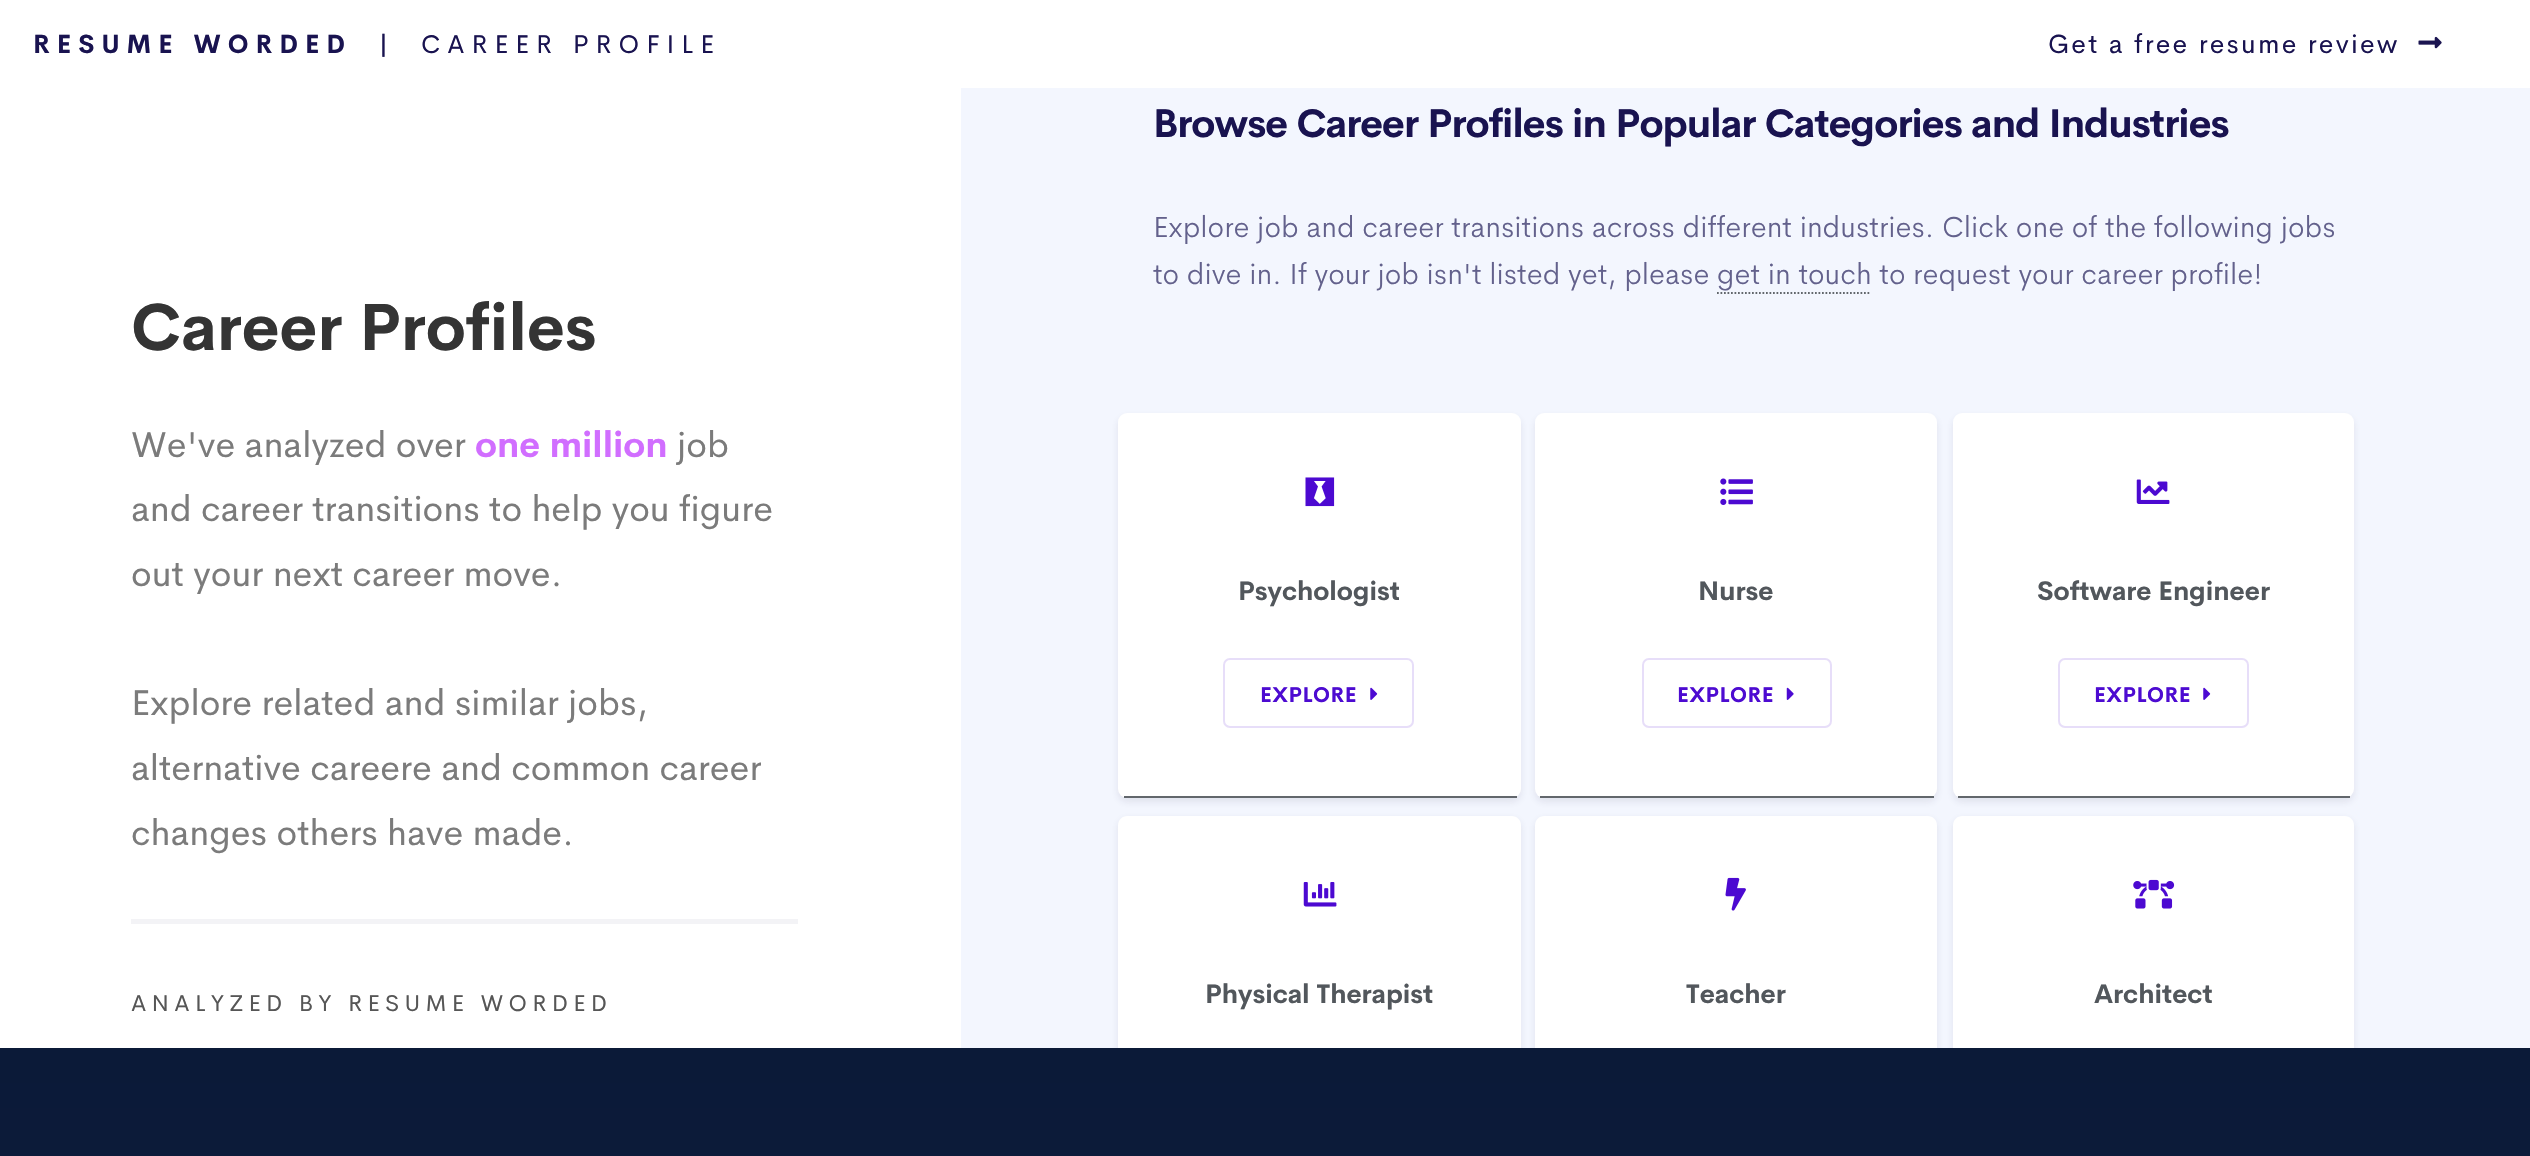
void draw(SkCanvas* canvas) {
	SkPaint fill;
	fill.setAntiAlias(true);
	auto makeFont = [&](const char* family, int weight, float size, bool italic = false) {
		SkFontStyle style(weight, SkFontStyle::kNormal_Width,
			italic ? SkFontStyle::kItalic_Slant : SkFontStyle::kUpright_Slant);
		SkFont result(fontMgr->matchFamilyStyle(family, style), size);
		result.setSubpixel(true);
		return result;
	};
	auto text = [&](const char* s, float x, float y, const SkFont& font) {
		canvas->drawString(s, x, y, font, fill);
	};
	auto spacedText = [&](const char* s, float x, float y, const SkFont& font, const SkPaint& ink, float letter, float word) {
		std::vector<SkGlyphID> glyphs(font.countText(s, strlen(s), SkTextEncoding::kUTF8));
		std::vector<float> xs(glyphs.size());
		font.textToGlyphs(s, strlen(s), SkTextEncoding::kUTF8, glyphs);
		font.getXPos(glyphs, xs, x);
		float extra = 0;
		for (size_t i = 0; i < glyphs.size(); i++) {
			xs[i] += extra;
			extra += letter + word * (glyphs[i] == font.unicharToGlyph(' '));
		}
		canvas->drawTextBlob(SkTextBlob::MakeFromPosHGlyphs(glyphs, xs, y, font), 0, 0, ink);
	};
	auto box = [&](float l, float t, float r, float b) {
		canvas->drawRect(SkRect::MakeLTRB(l, t, r, b), fill);
	};
	auto roundBox = [&](float l, float t, float r, float b, float radius) {
		canvas->drawRoundRect(SkRect::MakeLTRB(l, t, r, b), radius, radius, fill);
	};
	auto picture = [&](const char* path, float l, float t, float r, float b) {
		auto image = SkImages::DeferredFromEncodedData(SkData::MakeFromFileName(path));
		canvas->drawImageRect(image, SkRect::MakeLTRB(l, t, r, b), SkSamplingOptions());
	};
	canvas->clear(0xFFFFFFFF);
	picture("image0.png", 2418, 36, 2442, 49);
	fill.setColor(0xFFF3F3F6);
	box(131, 919, 798, 924);
	fill.setColor(0xFFF3F6FE);
	box(961, 88, 2530, 1048);
	fill.setStyle(SkPaint::kStroke_Style);
	fill.setStrokeWidth(1.8f);
	fill.setColor(0xFF62676C);
	fill.setPathEffect(SkDashPathEffect::Make({{1.75f, 1.75f}}, 0));
	canvas->drawPath(SkPathBuilder().moveTo(1717, 293).lineTo(1871, 293).detach(), fill);
	fill.setPathEffect(nullptr);
	fill.setStyle(SkPaint::kFill_Style);
	fill.setColor(0x1A32325D);
	fill.setMaskFilter(SkMaskFilter::MakeBlur(kNormal_SkBlurStyle, 3.5f));
	canvas->drawRoundRect(SkRect::MakeLTRB(1118, 417, 1521, 802), 9, 9, fill);
	fill.setMaskFilter(nullptr);
	fill.setColor(0xFFFFFFFF);
	roundBox(1118, 413, 1521, 798, 9);
	fill.setColor(0xFF62676C);
	box(1124, 796, 1517, 798);
	picture("image1.png", 1305, 477, 1335, 507);
	fill.setStyle(SkPaint::kStroke_Style);
	fill.setStrokeWidth(2);
	fill.setColor(0xFFE7DEF9);
	canvas->drawRoundRect(SkRect::MakeLTRB(1224, 659, 1413, 727), 6, 6, fill);
	picture("image2.png", 1370, 687, 1378, 700);
	fill.setStyle(SkPaint::kFill_Style);
	fill.setColor(0x1A32325D);
	fill.setMaskFilter(SkMaskFilter::MakeBlur(kNormal_SkBlurStyle, 3.5f));
	canvas->drawRoundRect(SkRect::MakeLTRB(1535, 417, 1937, 802), 9, 9, fill);
	fill.setMaskFilter(nullptr);
	fill.setColor(0xFFFFFFFF);
	roundBox(1535, 413, 1937, 798, 9);
	fill.setColor(0xFF62676C);
	box(1540, 796, 1934, 798);
	picture("image3.png", 1720, 478, 1753, 505);
	fill.setStyle(SkPaint::kStroke_Style);
	fill.setColor(0xFFE7DEF9);
	canvas->drawRoundRect(SkRect::MakeLTRB(1643, 659, 1831, 727), 6, 6, fill);
	picture("image4.png", 1786, 687, 1794, 700);
	fill.setStyle(SkPaint::kFill_Style);
	fill.setColor(0x1A32325D);
	fill.setMaskFilter(SkMaskFilter::MakeBlur(kNormal_SkBlurStyle, 3.5f));
	canvas->drawRoundRect(SkRect::MakeLTRB(1953, 417, 2354, 802), 9, 9, fill);
	fill.setMaskFilter(nullptr);
	fill.setColor(0xFFFFFFFF);
	roundBox(1953, 413, 2354, 798, 9);
	fill.setColor(0xFF62676C);
	box(1958, 796, 2350, 798);
	picture("image5.png", 2136, 479, 2170, 504);
	fill.setStyle(SkPaint::kStroke_Style);
	fill.setColor(0xFFE7DEF9);
	canvas->drawRoundRect(SkRect::MakeLTRB(2059, 659, 2248, 727), 6, 6, fill);
	picture("image2.png", 2203, 687, 2211, 700);
	fill.setStyle(SkPaint::kFill_Style);
	{
		const SkColor colors[] = {0xFF0B1A38, 0xFF1A2552};
		const float stops[] = {0, 1};
		const SkPoint ends[] = {{1265, 1048}, {1265, 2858}};
		fill.setShader(SkGradientShader::MakeLinear(ends, colors, stops, 2, SkTileMode::kClamp));
		fill.setAlpha(255);
	}
	box(0, 1048, 2530, 1156);
	canvas->save();
	canvas->clipRect(SkRect::MakeLTRB(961, 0, 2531, 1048));
	fill.setShader(nullptr);
	fill.setColor(0x1A32325D);
	fill.setMaskFilter(SkMaskFilter::MakeBlur(kNormal_SkBlurStyle, 3.5f));
	canvas->drawRoundRect(SkRect::MakeLTRB(1118, 819, 1521, 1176), 9, 9, fill);
	fill.setMaskFilter(nullptr);
	canvas->restore();
	fill.setColor(0xFFFFFFFF);
	canvas->drawPath(SkPathBuilder().moveTo(1127, 816).lineTo(1512, 816).cubicTo(1517, 816, 1521, 820, 1521, 825).lineTo(1521, 1048).lineTo(1118, 1048).lineTo(1118, 825).cubicTo(1118, 820, 1122, 816, 1127, 816).close().detach(), fill);
	picture("image6.png", 1303, 882, 1337, 907);
	canvas->save();
	canvas->clipRect(SkRect::MakeLTRB(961, 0, 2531, 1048));
	fill.setColor(0x1A32325D);
	fill.setMaskFilter(SkMaskFilter::MakeBlur(kNormal_SkBlurStyle, 3.5f));
	canvas->drawRoundRect(SkRect::MakeLTRB(1535, 819, 1937, 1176), 9, 9, fill);
	fill.setMaskFilter(nullptr);
	canvas->restore();
	fill.setColor(0xFFFFFFFF);
	canvas->drawPath(SkPathBuilder().moveTo(1544, 816).lineTo(1928, 816).cubicTo(1933, 816, 1937, 820, 1937, 825).lineTo(1937, 1048).lineTo(1535, 1048).lineTo(1535, 825).cubicTo(1535, 820, 1539, 816, 1544, 816).close().detach(), fill);
	picture("image7.png", 1725, 877, 1746, 911);
	canvas->save();
	canvas->clipRect(SkRect::MakeLTRB(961, 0, 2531, 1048));
	fill.setColor(0x1A32325D);
	fill.setMaskFilter(SkMaskFilter::MakeBlur(kNormal_SkBlurStyle, 3.5f));
	canvas->drawRoundRect(SkRect::MakeLTRB(1953, 819, 2354, 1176), 9, 9, fill);
	fill.setMaskFilter(nullptr);
	canvas->restore();
	fill.setColor(0xFFFFFFFF);
	canvas->drawPath(SkPathBuilder().moveTo(1962, 816).lineTo(2345, 816).cubicTo(2350, 816, 2354, 820, 2354, 825).lineTo(2354, 1048).lineTo(1953, 1048).lineTo(1953, 825).cubicTo(1953, 820, 1957, 816, 1962, 816).close().detach(), fill);
	picture("image8.png", 2133, 879, 2175, 909);
	auto font1 = makeFont("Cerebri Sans", 700, 25.7f);
	fill.setColor(0xFF191350);
	spacedText("RESUME WORDED  |", 33, 53, font1, fill, 7, 0);
	auto font2 = makeFont("Cerebri Sans", 400, 25.7f);
	spacedText("CAREER PROFILE", 421, 53, font2, fill, 7, 0);
	auto font3 = makeFont("Cerebri Sans", 400, 26.5f);
	spacedText("Get a free resume review", 2048, 53, font3, fill, 2.25f, 0);
	auto font4 = makeFont("Cerebri Sans", 700, 65.25f);
	fill.setColor(0xFF343434);
	text("Career Profiles", 131, 350, font4);
	auto font5 = makeFont("Cerebri Sans", 400, 35.9f);
	fill.setColor(0xFF7B7B7B);
	text("We've analyzed over", 131, 457, font5);
	auto font6 = makeFont("Cerebri Sans", 700, 35.9f);
	fill.setColor(0xFFD16EFF);
	text("one million", 475, 457, font6);
	fill.setColor(0xFF7B7B7B);
	text("job", 677, 457, font5);
	text("and career transitions to help you figure", 131, 521, font5);
	text("out your next career move.", 131, 586, font5);
	text("Explore related and similar jobs,", 131, 715, font5);
	text("alternative careere and common career", 131, 780, font5);
	text("changes others have made.", 131, 845, font5);
	auto font7 = makeFont("Cerebri Sans", 400, 22.9f);
	fill.setColor(0xFF565656);
	spacedText("ANALYZED BY RESUME WORDED", 131, 1011, font7, fill, 5.25f, 0);
	auto font8 = makeFont("Cerebri Sans", 700, 39.2f);
	fill.setColor(0xFF191350);
	spacedText("Browse Career Profiles in Popular Categories and Industries", 1153, 137, font8, fill, -0.88f, 0);
	auto font9 = makeFont("Cerebri Sans", 300, 29.4f);
	fill.setColor(0xFF63618C);
	text("Explore job and career transitions across different industries. Click one of the following jobs", 1153, 237, font9);
	text("to dive in. If your job isn't listed yet, please get in touch to request your career profile!", 1153, 284, font9);
	auto font10 = makeFont("Cerebri Sans", 700, 26.25f);
	fill.setColor(0xFF52575C);
	text("Psychologist", 1238, 600, font10);
	auto font11 = makeFont("Cerebri Sans", 700, 21);
	fill.setColor(0xFF4D0BD1);
	spacedText("EXPLORE", 1260, 702, font11, fill, 0.5f, 0);
	fill.setColor(0xFF52575C);
	text("Nurse", 1698, 600, font10);
	fill.setColor(0xFF4D0BD1);
	spacedText("EXPLORE", 1677, 702, font11, fill, 0.5f, 0);
	fill.setColor(0xFF52575C);
	text("Software Engineer", 2037, 600, font10);
	fill.setColor(0xFF4D0BD1);
	spacedText("EXPLORE", 2094, 702, font11, fill, 0.5f, 0);
	fill.setColor(0xFF52575C);
	text("Physical Therapist", 1205, 1003, font10);
	text("Teacher", 1686, 1003, font10);
	text("Architect", 2094, 1003, font10);
}
